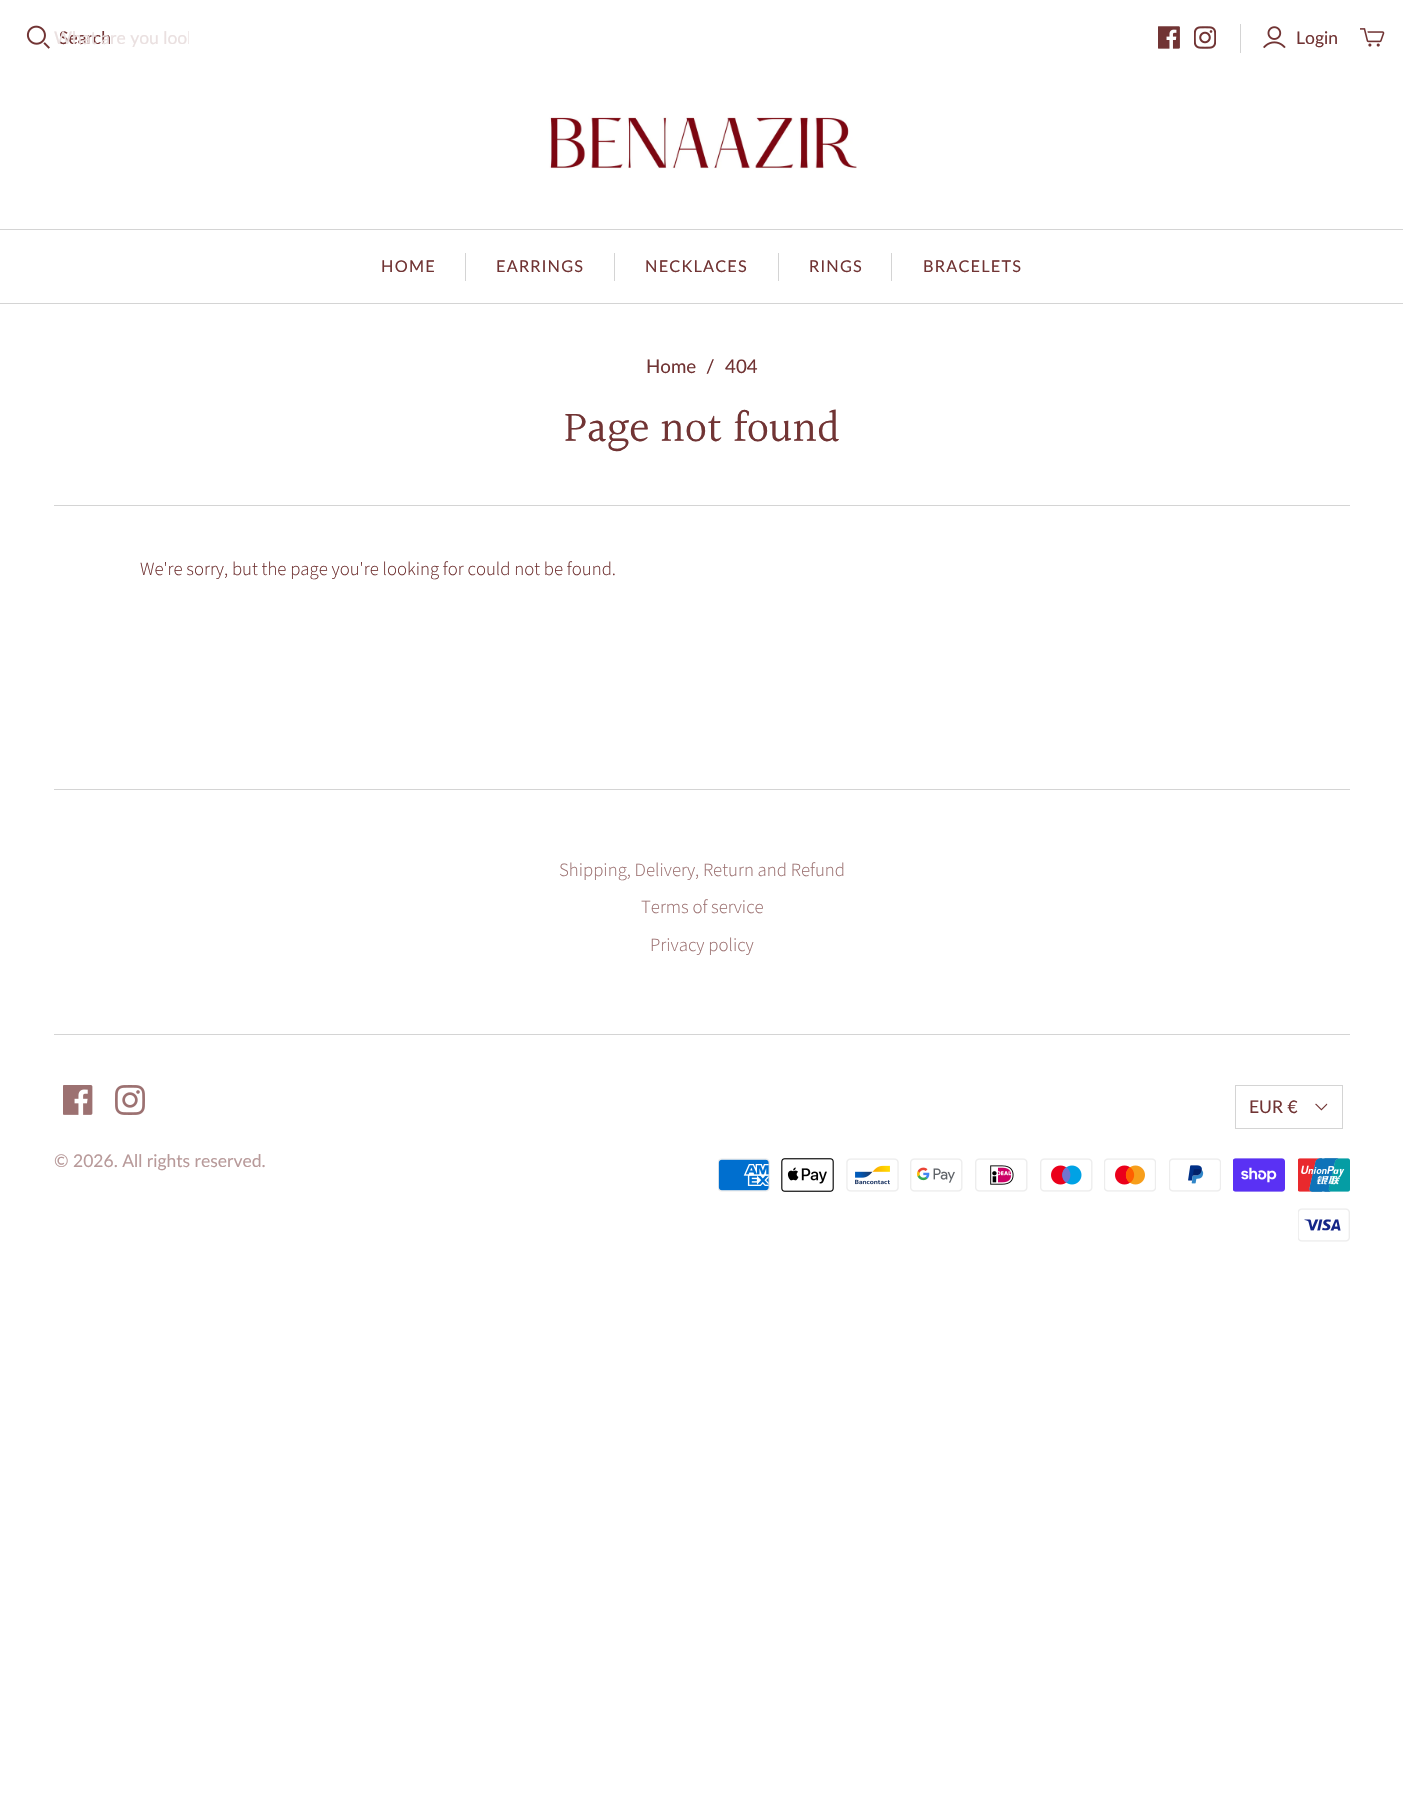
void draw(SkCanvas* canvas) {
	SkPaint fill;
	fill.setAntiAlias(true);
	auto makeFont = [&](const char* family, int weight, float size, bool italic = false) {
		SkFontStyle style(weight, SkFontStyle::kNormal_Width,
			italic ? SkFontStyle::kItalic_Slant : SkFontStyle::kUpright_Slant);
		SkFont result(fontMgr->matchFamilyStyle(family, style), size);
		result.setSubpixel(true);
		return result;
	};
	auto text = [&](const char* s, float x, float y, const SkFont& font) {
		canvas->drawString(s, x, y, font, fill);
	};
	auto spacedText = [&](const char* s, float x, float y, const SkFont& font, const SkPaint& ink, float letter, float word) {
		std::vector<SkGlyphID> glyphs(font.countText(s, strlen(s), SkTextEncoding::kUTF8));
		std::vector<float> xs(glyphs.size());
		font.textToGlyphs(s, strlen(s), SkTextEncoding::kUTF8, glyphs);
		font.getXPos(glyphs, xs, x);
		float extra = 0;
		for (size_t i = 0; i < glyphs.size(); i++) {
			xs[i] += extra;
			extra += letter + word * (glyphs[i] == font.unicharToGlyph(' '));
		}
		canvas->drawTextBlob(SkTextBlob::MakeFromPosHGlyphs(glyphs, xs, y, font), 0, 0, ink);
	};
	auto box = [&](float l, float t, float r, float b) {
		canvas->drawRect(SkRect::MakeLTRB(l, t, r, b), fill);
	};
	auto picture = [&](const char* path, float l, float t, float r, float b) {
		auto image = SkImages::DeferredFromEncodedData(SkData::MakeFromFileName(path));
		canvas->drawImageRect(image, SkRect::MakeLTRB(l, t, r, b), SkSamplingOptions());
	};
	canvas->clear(0xFFFFFFFF);
	picture("image0.png", 26, 25, 50, 49);
	picture("image1.png", 1158, 26, 1180, 49);
	picture("image2.png", 1194, 26, 1216, 49);
	fill.setColor(0xFFD4D4D4);
	box(1240, 24, 1241, 53);
	picture("image3.png", 1263, 26, 1286, 49);
	picture("image4.png", 1360, 28, 1385, 47);
	picture("image5.png", 549, 116, 857, 169);
	box(0, 229, 1403, 230);
	box(0, 303, 1403, 304);
	box(465, 253, 466, 281);
	box(614, 253, 615, 281);
	box(778, 253, 779, 281);
	box(891, 253, 892, 281);
	box(54, 505, 1350, 506);
	box(54, 789, 1350, 790);
	box(54, 1034, 1350, 1035);
	fill.setStyle(SkPaint::kStroke_Style);
	fill.setStrokeWidth(1);
	canvas->drawRect(SkRect::MakeLTRB(1235.5f, 1085.5f, 1342.5f, 1128.5f), fill);
	picture("image6.png", 1315, 1103, 1328, 1111);
	picture("image7.png", 718, 1158, 770, 1192);
	picture("image8.png", 781, 1158, 834, 1192);
	picture("image9.png", 846, 1158, 899, 1192);
	picture("image10.png", 910, 1158, 963, 1192);
	picture("image11.png", 975, 1158, 1028, 1192);
	picture("image12.png", 1040, 1158, 1093, 1192);
	picture("image13.png", 1104, 1158, 1156, 1192);
	picture("image14.png", 1169, 1158, 1221, 1192);
	picture("image15.png", 1233, 1158, 1285, 1192);
	picture("image16.png", 1298, 1158, 1350, 1192);
	picture("image17.png", 1298, 1208, 1350, 1242);
	picture("image18.png", 63, 1085, 93, 1115);
	picture("image19.png", 115, 1085, 145, 1115);
	auto font1 = makeFont("Lato", 400, 17.5f);
	fill.setStyle(SkPaint::kFill_Style);
	fill.setColor(0xFF713434);
	text("Search", 59, 44, font1);
	canvas->save();
	canvas->clipRect(SkRect::MakeLTRB(54, 26, 189, 48));
	fill.setColor(0xFFEAE0E0);
	text("What are you look", 54, 44, font1);
	canvas->restore();
	fill.setColor(0xFF713434);
	text("Login", 1296, 44, font1);
	auto font2 = makeFont("Lato", 400, 16.25f);
	spacedText("HOME", 381, 272, font2, fill, 1.25f, 0);
	spacedText("EARRINGS", 496, 272, font2, fill, 1.25f, 0);
	spacedText("NECKLACES", 645, 272, font2, fill, 1.25f, 0);
	spacedText("RINGS", 809, 272, font2, fill, 1.25f, 0);
	spacedText("BRACELETS", 923, 272, font2, fill, 1.25f, 0);
	auto font3 = makeFont("Lato", 400, 18.75f);
	text("Home", 646, 373, font3);
	text("/", 706, 373, font3);
	text("404", 725, 373, font3);
	auto font4 = makeFont("Halant", 400, 43.75f);
	text("Page not found", 564, 443, font4);
	auto font5 = makeFont("Source Sans Pro", 300, 18.75f);
	text("We're sorry, but the page you're looking for could not be found.", 140, 575, font5);
	fill.setColor(0xFF9C7171);
	text("Shipping, Delivery, Return and Refund", 559, 876, font5);
	text("Terms of service", 641, 913, font5);
	text("Privacy policy", 650, 951, font5);
	fill.setColor(0xFF713434);
	text("EUR €", 1249, 1113, font1);
	fill.setColor(0xFFB89A9A);
	text("© 2026. All rights reserved.", 54, 1167, font1);
}
